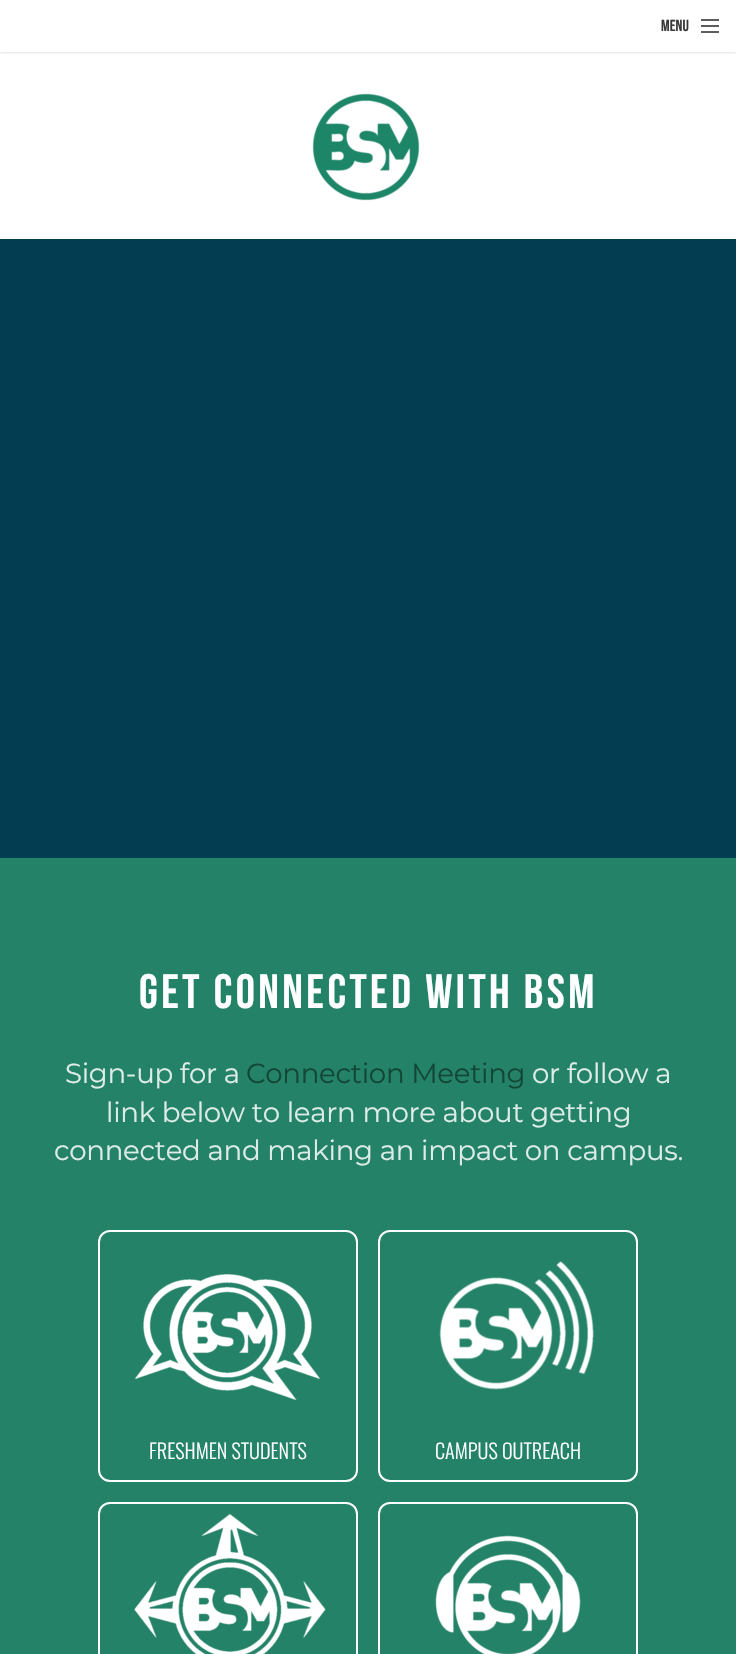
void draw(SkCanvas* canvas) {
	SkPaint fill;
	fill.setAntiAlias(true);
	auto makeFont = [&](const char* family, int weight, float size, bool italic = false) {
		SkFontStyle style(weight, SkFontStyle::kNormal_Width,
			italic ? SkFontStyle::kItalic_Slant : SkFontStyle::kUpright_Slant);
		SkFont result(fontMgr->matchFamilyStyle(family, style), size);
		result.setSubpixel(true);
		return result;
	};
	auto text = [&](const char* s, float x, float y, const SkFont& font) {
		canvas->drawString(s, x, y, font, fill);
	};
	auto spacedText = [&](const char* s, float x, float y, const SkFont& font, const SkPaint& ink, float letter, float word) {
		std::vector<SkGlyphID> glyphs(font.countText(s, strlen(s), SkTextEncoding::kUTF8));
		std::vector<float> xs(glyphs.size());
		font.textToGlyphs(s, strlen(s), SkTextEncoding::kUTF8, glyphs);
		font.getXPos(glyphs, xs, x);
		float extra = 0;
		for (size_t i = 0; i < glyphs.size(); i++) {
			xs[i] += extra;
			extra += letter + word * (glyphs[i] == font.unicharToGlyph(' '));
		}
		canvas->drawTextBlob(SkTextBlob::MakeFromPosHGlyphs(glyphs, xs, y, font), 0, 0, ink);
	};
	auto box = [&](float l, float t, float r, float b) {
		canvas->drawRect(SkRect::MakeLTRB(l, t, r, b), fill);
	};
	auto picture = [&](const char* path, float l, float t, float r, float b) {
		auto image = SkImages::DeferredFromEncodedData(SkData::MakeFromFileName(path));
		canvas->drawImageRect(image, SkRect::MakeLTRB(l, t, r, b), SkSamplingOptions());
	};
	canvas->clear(0xFF033D52);
	fill.setColor(0xFFFFFFFF);
	box(0, 0, 736, 239);
	canvas->save();
	canvas->clipRect(SkRect::MakeLTRB(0, 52, 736, 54));
	fill.setColor(0x33000000);
	fill.setMaskFilter(SkMaskFilter::MakeBlur(kNormal_SkBlurStyle, 1.5f));
	canvas->drawRect(SkRect::MakeLTRB(0, 0, 736, 52), fill);
	fill.setMaskFilter(nullptr);
	canvas->restore();
	fill.setColor(0xFF5D5D5D);
	box(701, 19, 719, 21);
	box(701, 25, 719, 27);
	box(701, 31, 719, 33);
	picture("image0.png", 312, 93, 420, 201);
	fill.setColor(0xFF238267);
	box(0, 858, 736, 1654);
	fill.setStyle(SkPaint::kStroke_Style);
	fill.setStrokeWidth(2);
	fill.setColor(0xFFFFFFFF);
	canvas->drawRoundRect(SkRect::MakeLTRB(99, 1231, 357, 1481), 11, 11, fill);
	picture("image1.png", 135, 1273, 320, 1401);
	canvas->drawRoundRect(SkRect::MakeLTRB(379, 1231, 637, 1481), 11, 11, fill);
	picture("image2.png", 439, 1261, 594, 1390);
	canvas->drawRoundRect(SkRect::MakeLTRB(99, 1503, 357, 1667), 11, 11, fill);
	picture("image3.png", 134, 1513, 326, 1654);
	canvas->drawRoundRect(SkRect::MakeLTRB(379, 1503, 637, 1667), 11, 11, fill);
	picture("image4.png", 435, 1535, 581, 1654);
	auto font1 = makeFont("Bebas Neue", 400, 16);
	fill.setStyle(SkPaint::kFill_Style);
	fill.setColor(0xFF393939);
	text("MENU", 661, 31, font1);
	auto font2 = makeFont("Bebas Neue", 400, 48.25f);
	fill.setColor(0xFFFFFFFF);
	spacedText("GET CONNECTED WITH BSM", 139, 1008, font2, fill, 3.4f, 0);
	auto font3 = makeFont("Montserrat", 400, 27.65f);
	fill.setColor(0xFFDEECE8);
	spacedText("Sign-up for a", 65, 1083, font3, fill, -0.3f, 0);
	fill.setColor(0xFF134637);
	spacedText("Connection Meeting", 246, 1083, font3, fill, -0.3f, 0);
	fill.setColor(0xFFDEECE8);
	spacedText("or follow a", 532, 1083, font3, fill, -0.3f, 0);
	spacedText("link below to learn more about getting", 106, 1122, font3, fill, -0.3f, 0);
	spacedText("connected and making an impact on campus.", 54, 1160, font3, fill, -0.3f, 0);
	auto font4 = makeFont("Oswald", 300, 20.25f);
	fill.setColor(0xFFFFFFFF);
	text("FRESHMEN STUDENTS", 149, 1459, font4);
	text("CAMPUS OUTREACH", 435, 1459, font4);
}
